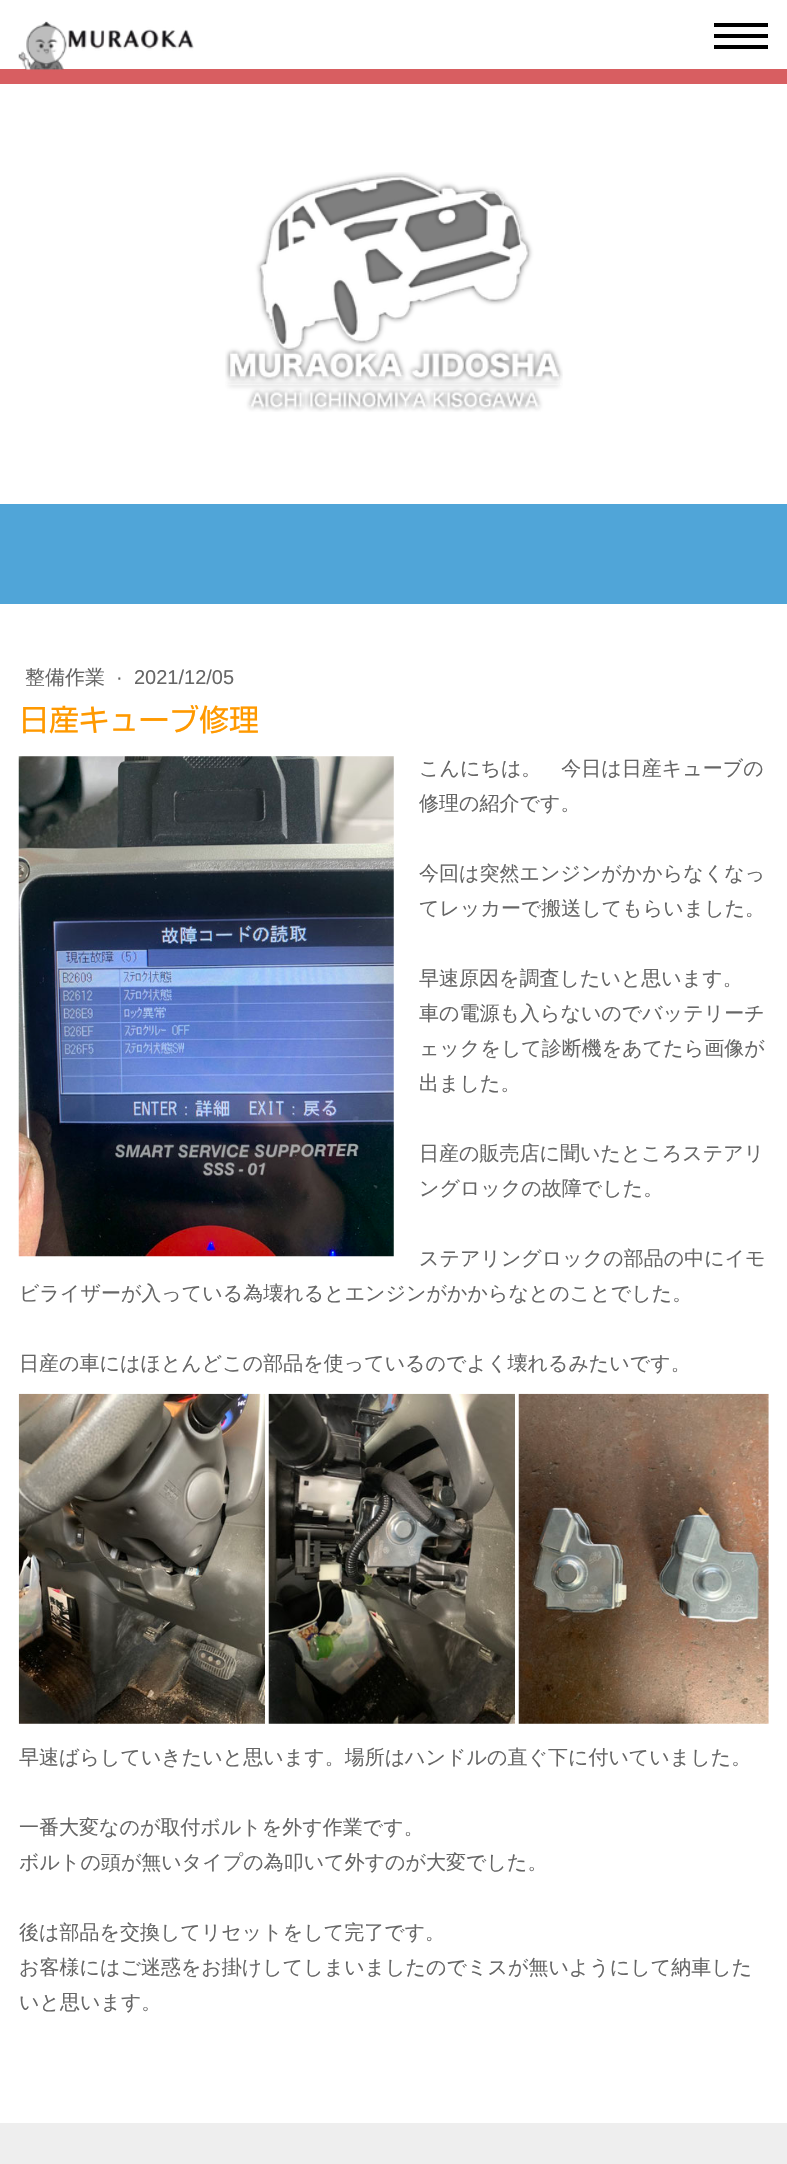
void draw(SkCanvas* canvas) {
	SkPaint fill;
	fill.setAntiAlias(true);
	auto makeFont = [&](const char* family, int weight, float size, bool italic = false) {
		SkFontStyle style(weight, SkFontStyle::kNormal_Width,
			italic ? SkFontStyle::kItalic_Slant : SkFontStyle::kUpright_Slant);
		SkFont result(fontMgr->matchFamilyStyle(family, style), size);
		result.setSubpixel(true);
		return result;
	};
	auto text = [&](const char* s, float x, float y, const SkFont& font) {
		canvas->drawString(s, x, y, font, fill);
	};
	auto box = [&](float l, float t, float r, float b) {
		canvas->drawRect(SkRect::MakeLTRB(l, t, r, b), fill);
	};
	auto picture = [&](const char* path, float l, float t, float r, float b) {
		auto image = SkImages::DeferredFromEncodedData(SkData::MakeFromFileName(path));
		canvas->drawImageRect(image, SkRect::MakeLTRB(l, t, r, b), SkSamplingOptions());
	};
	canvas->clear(0xFFFFFFFF);
	fill.setColor(0xFFD85E61);
	box(0, 69, 787, 84);
	picture("image0.png", 18, 21, 194, 70);
	fill.setColor(0xFF000000);
	box(714, 34, 768, 38);
	box(714, 23, 768, 27);
	box(714, 45, 768, 49);
	fill.setColor(0xFF50A5D8);
	box(0, 504, 787, 604);
	picture("image1.png", 225, 172, 563, 412);
	picture("image2.png", 18, 756, 394, 1257);
	picture("image3.png", 18, 1393, 265, 1724);
	picture("image4.png", 268, 1393, 515, 1724);
	picture("image5.png", 518, 1393, 769, 1724);
	fill.setColor(0xFFEEEEEE);
	box(0, 2123, 787, 2164);
	auto font1 = makeFont("WenQuanYi Zen Hei", 500, 20);
	fill.setColor(0xFF666666);
	text("整備作業", 25, 684, font1);
	auto font2 = makeFont("Liberation Sans", 400, 20);
	text("·", 116, 684, font2);
	text("2021/12/05", 134, 684, font2);
	auto font3 = makeFont("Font", 400, 30);
	fill.setColor(0xFFFF9900);
	text("日産キューブ修理", 19, 731, font3);
	fill.setColor(0xFF666666);
	text("こんにちは。　今日は日産キューブの", 419, 775, font1);
	text("修理の紹介です。", 419, 810, font1);
	text("今回は突然エンジンがかからなくなっ", 419, 880, font1);
	text("てレッカーで搬送してもらいました。", 419, 915, font1);
	text("早速原因を調査したいと思います。", 419, 985, font1);
	text("車の電源も入らないのでバッテリーチ", 419, 1020, font1);
	text("ェックをして診断機をあてたら画像が", 419, 1055, font1);
	text("出ました。", 419, 1090, font1);
	text("日産の販売店に聞いたところステアリ", 419, 1160, font1);
	text("ングロックの故障でした。", 419, 1195, font1);
	text("ステアリングロックの部品の中にイモ", 419, 1265, font1);
	text("ビライザーが入っている為壊れるとエンジンがかからなとのことでした。", 19, 1300, font1);
	text("日産の車にはほとんどこの部品を使っているのでよく壊れるみたいです。", 19, 1370, font1);
	text("早速ばらしていきたいと思います。場所はハンドルの直ぐ下に付いていました。", 19, 1764, font1);
	text("一番大変なのが取付ボルトを外す作業です。", 19, 1834, font1);
	text("ボルトの頭が無いタイプの為叩いて外すのが大変でした。", 19, 1869, font1);
	text("後は部品を交換してリセットをして完了です。", 19, 1939, font1);
	text("お客様にはご迷惑をお掛けしてしまいましたのでミスが無いようにして納車した", 19, 1974, font1);
	text("いと思います。", 19, 2009, font1);
}
